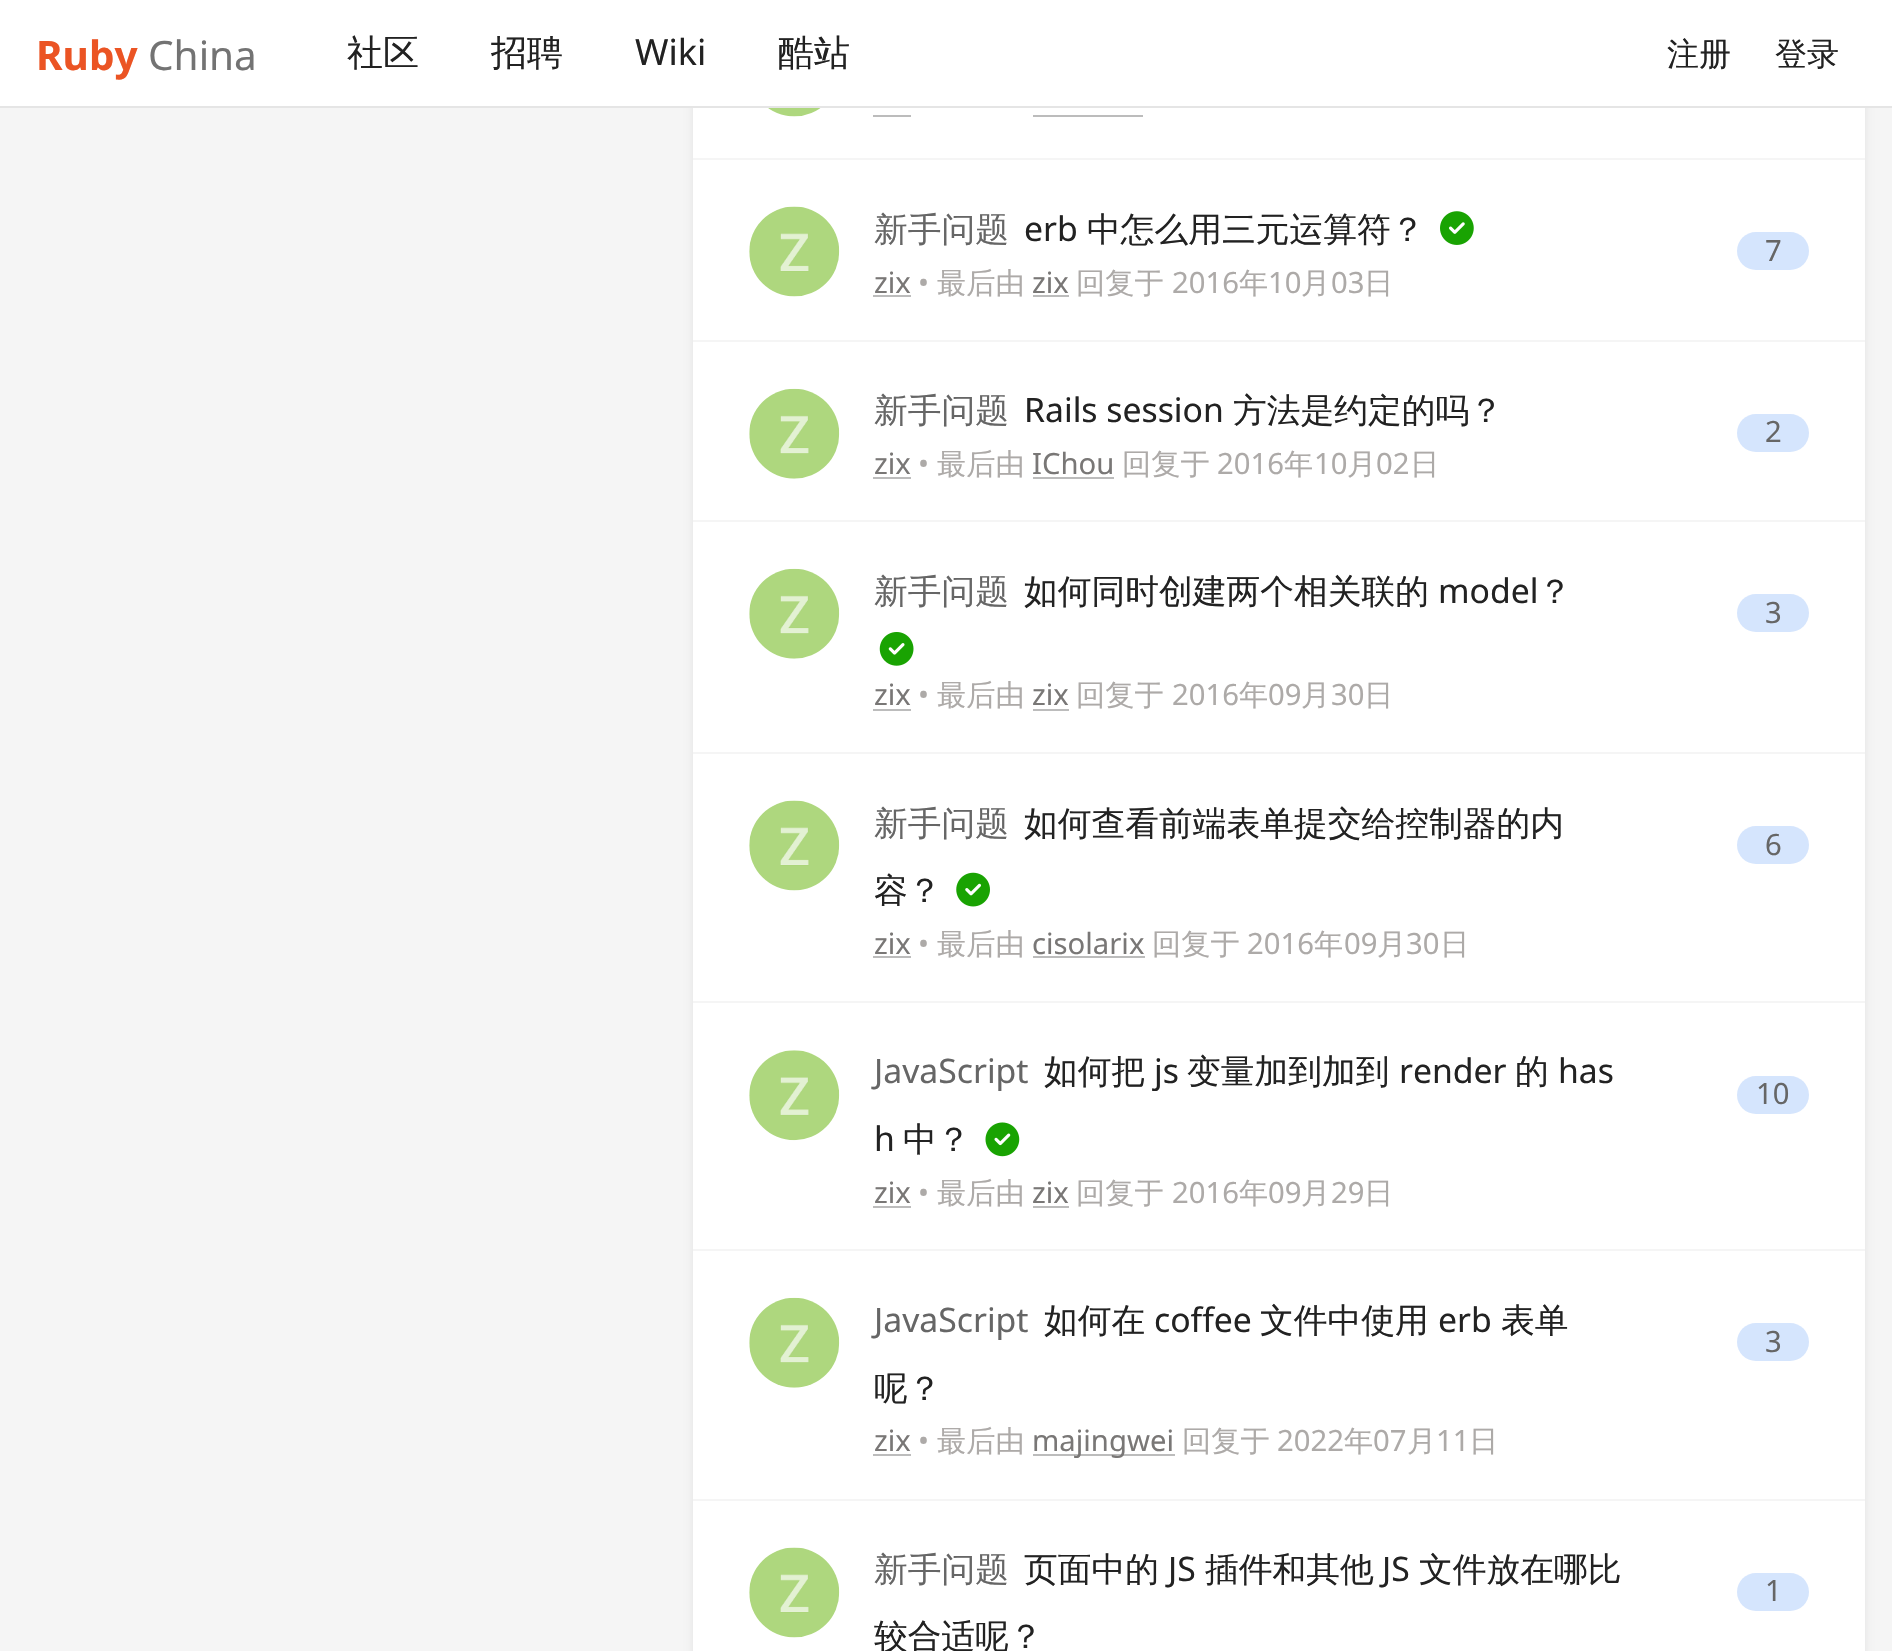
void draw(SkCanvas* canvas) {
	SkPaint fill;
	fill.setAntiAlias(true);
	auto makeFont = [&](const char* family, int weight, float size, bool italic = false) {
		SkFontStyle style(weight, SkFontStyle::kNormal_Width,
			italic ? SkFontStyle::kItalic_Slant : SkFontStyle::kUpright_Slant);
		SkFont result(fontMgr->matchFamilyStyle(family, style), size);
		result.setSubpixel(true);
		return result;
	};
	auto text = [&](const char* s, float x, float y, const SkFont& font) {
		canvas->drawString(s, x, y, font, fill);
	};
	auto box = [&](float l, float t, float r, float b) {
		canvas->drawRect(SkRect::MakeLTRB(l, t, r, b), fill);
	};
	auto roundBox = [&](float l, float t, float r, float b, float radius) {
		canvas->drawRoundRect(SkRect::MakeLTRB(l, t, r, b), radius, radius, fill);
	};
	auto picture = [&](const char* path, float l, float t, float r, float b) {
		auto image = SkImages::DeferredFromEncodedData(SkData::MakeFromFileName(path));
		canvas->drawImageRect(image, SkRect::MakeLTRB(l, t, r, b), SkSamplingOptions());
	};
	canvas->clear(0xFFF5F5F5);
	fill.setColor(0x12000000);
	fill.setMaskFilter(SkMaskFilter::MakeBlur(kNormal_SkBlurStyle, 4.5f));
	canvas->drawRoundRect(SkRect::MakeLTRB(693, -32, 1865, 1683), 18, 18, fill);
	fill.setMaskFilter(nullptr);
	fill.setColor(0xFFFFFFFF);
	box(0, 0, 1892, 106);
	fill.setColor(0xFFE5E5E5);
	box(0, 106, 1892, 108);
	fill.setColor(0xFFFFFFFF);
	box(693, 108, 1865, 1651);
	fill.setColor(0xFFF5F5F5);
	box(693, 158, 1865, 160);
	picture("image0.png", 768, 108, 821, 117);
	fill.setColor(0xFFBCBCBC);
	box(873, 115, 911, 117);
	box(1033, 115, 1143, 117);
	fill.setColor(0xFFF5F5F5);
	box(693, 340, 1865, 342);
	picture("image1.png", 749, 206, 840, 297);
	picture("image2.png", 1440, 211, 1474, 245);
	fill.setColor(0xFFBCBCBC);
	box(873, 295, 911, 297);
	box(1033, 295, 1069, 297);
	fill.setColor(0xFFD5E5FD);
	roundBox(1737, 232, 1809, 270, 19);
	fill.setColor(0xFFF5F5F5);
	box(693, 520, 1865, 522);
	picture("image3.png", 749, 388, 840, 479);
	fill.setColor(0xFFBCBCBC);
	box(873, 477, 911, 479);
	box(1033, 477, 1114, 479);
	fill.setColor(0xFFD5E5FD);
	roundBox(1737, 414, 1809, 452, 19);
	fill.setColor(0xFFF5F5F5);
	box(693, 752, 1865, 754);
	picture("image3.png", 749, 568, 840, 659);
	picture("image4.png", 879, 632, 914, 666);
	fill.setColor(0xFFBCBCBC);
	box(873, 709, 911, 711);
	box(1033, 709, 1069, 711);
	fill.setColor(0xFFD5E5FD);
	roundBox(1737, 594, 1809, 632, 19);
	fill.setColor(0xFFF5F5F5);
	box(693, 1001, 1865, 1003);
	picture("image5.png", 749, 800, 840, 891);
	picture("image6.png", 956, 872, 990, 907);
	fill.setColor(0xFFBCBCBC);
	box(873, 956, 911, 958);
	box(1033, 956, 1145, 958);
	fill.setColor(0xFFD5E5FD);
	roundBox(1737, 826, 1809, 864, 19);
	fill.setColor(0xFFF5F5F5);
	box(693, 1249, 1865, 1251);
	picture("image7.png", 749, 1050, 840, 1141);
	picture("image8.png", 985, 1122, 1020, 1157);
	fill.setColor(0xFFBCBCBC);
	box(873, 1206, 911, 1208);
	box(1033, 1206, 1069, 1208);
	fill.setColor(0xFFD5E5FD);
	roundBox(1737, 1076, 1809, 1114, 19);
	fill.setColor(0xFFF5F5F5);
	box(693, 1499, 1865, 1501);
	picture("image9.png", 749, 1297, 840, 1388);
	fill.setColor(0xFFBCBCBC);
	box(873, 1454, 911, 1456);
	box(1033, 1454, 1175, 1456);
	fill.setColor(0xFFD5E5FD);
	roundBox(1737, 1323, 1809, 1361, 19);
	picture("image10.png", 749, 1547, 840, 1638);
	roundBox(1737, 1573, 1809, 1611, 19);
	auto font1 = makeFont("Noto Sans", 700, 40.5f);
	fill.setColor(0xFFEB5424);
	text("Ruby", 36, 70, font1);
	auto font2 = makeFont("Noto Sans", 400, 40.5f);
	fill.setColor(0xFF737373);
	text("China", 148, 70, font2);
	auto font3 = makeFont("WenQuanYi Zen Hei", 500, 36);
	fill.setColor(0xFF222222);
	text("社区", 347, 65, font3);
	text("招聘", 491, 65, font3);
	auto font4 = makeFont("Noto Sans", 400, 36);
	text("Wiki", 635, 65, font4);
	text("酷站", 778, 65, font3);
	auto font5 = makeFont("WenQuanYi Zen Hei", 500, 32);
	text("注册", 1667, 65, font5);
	text("登录", 1775, 65, font5);
	auto font6 = makeFont("WenQuanYi Zen Hei", 500, 33.75f);
	fill.setColor(0xFF666666);
	text("新手问题", 874, 241, font6);
	auto font7 = makeFont("Noto Sans", 400, 33.75f);
	fill.setColor(0xFF222222);
	text("erb", 1024, 241, font7);
	text("中怎么用三元运算符？", 1087, 241, font6);
	auto font8 = makeFont("Noto Sans", 400, 29.25f);
	fill.setColor(0xFF797776);
	text("zix", 874, 293, font8);
	fill.setColor(0xFFADAAA8);
	text("•", 918, 293, font8);
	auto font9 = makeFont("WenQuanYi Zen Hei", 500, 29.25f);
	text("最后由", 937, 293, font9);
	fill.setColor(0xFF797776);
	text("zix", 1032, 293, font8);
	fill.setColor(0xFFADAAA8);
	text("回复于", 1076, 293, font9);
	text("2016", 1172, 293, font8);
	text("年", 1239, 293, font9);
	text("10", 1268, 293, font8);
	text("月", 1301, 293, font9);
	text("03", 1331, 293, font8);
	text("日", 1364, 293, font9);
	fill.setColor(0xFF666666);
	text("7", 1765, 261, font8);
	text("新手问题", 874, 422, font6);
	fill.setColor(0xFF222222);
	text("Rails session", 1024, 422, font7);
	text("方法是约定的吗？", 1233, 422, font6);
	fill.setColor(0xFF797776);
	text("zix", 874, 474, font8);
	fill.setColor(0xFFADAAA8);
	text("•", 918, 474, font8);
	text("最后由", 937, 474, font9);
	fill.setColor(0xFF797776);
	text("IChou", 1032, 474, font8);
	fill.setColor(0xFFADAAA8);
	text("回复于", 1122, 474, font9);
	text("2016", 1217, 474, font8);
	text("年", 1284, 474, font9);
	text("10", 1314, 474, font8);
	text("月", 1347, 474, font9);
	text("02", 1376, 474, font8);
	text("日", 1410, 474, font9);
	fill.setColor(0xFF666666);
	text("2", 1765, 442, font8);
	text("新手问题", 874, 603, font6);
	fill.setColor(0xFF222222);
	text("如何同时创建两个相关联的", 1024, 603, font6);
	text("model", 1438, 603, font7);
	text("？", 1538, 603, font6);
	fill.setColor(0xFF797776);
	text("zix", 874, 705, font8);
	fill.setColor(0xFFADAAA8);
	text("•", 918, 705, font8);
	text("最后由", 937, 705, font9);
	fill.setColor(0xFF797776);
	text("zix", 1032, 705, font8);
	fill.setColor(0xFFADAAA8);
	text("回复于", 1076, 705, font9);
	text("2016", 1172, 705, font8);
	text("年", 1239, 705, font9);
	text("09", 1268, 705, font8);
	text("月", 1301, 705, font9);
	text("30", 1331, 705, font8);
	text("日", 1364, 705, font9);
	fill.setColor(0xFF666666);
	text("3", 1765, 623, font8);
	text("新手问题", 874, 835, font6);
	fill.setColor(0xFF222222);
	text("如何查看前端表单提交给控制器的内", 1024, 835, font6);
	text("容？", 874, 902, font6);
	fill.setColor(0xFF797776);
	text("zix", 874, 954, font8);
	fill.setColor(0xFFADAAA8);
	text("•", 918, 954, font8);
	text("最后由", 937, 954, font9);
	fill.setColor(0xFF797776);
	text("cisolarix", 1032, 954, font8);
	fill.setColor(0xFFADAAA8);
	text("回复于", 1152, 954, font9);
	text("2016", 1247, 954, font8);
	text("年", 1314, 954, font9);
	text("09", 1344, 954, font8);
	text("月", 1377, 954, font9);
	text("30", 1406, 954, font8);
	text("日", 1440, 954, font9);
	fill.setColor(0xFF666666);
	text("6", 1765, 855, font8);
	text("JavaScript", 874, 1083, font7);
	fill.setColor(0xFF222222);
	text("如何把", 1044, 1083, font6);
	text("js", 1154, 1083, font7);
	text("变量加到加到", 1187, 1083, font6);
	text("render", 1399, 1083, font7);
	text("的", 1515, 1083, font6);
	text("has", 1558, 1083, font7);
	text("h", 874, 1151, font7);
	text("中？", 903, 1151, font6);
	fill.setColor(0xFF797776);
	text("zix", 874, 1203, font8);
	fill.setColor(0xFFADAAA8);
	text("•", 918, 1203, font8);
	text("最后由", 937, 1203, font9);
	fill.setColor(0xFF797776);
	text("zix", 1032, 1203, font8);
	fill.setColor(0xFFADAAA8);
	text("回复于", 1076, 1203, font9);
	text("2016", 1172, 1203, font8);
	text("年", 1239, 1203, font9);
	text("09", 1268, 1203, font8);
	text("月", 1301, 1203, font9);
	text("29", 1331, 1203, font8);
	text("日", 1364, 1203, font9);
	fill.setColor(0xFF666666);
	text("10", 1756, 1104, font8);
	text("JavaScript", 874, 1332, font7);
	fill.setColor(0xFF222222);
	text("如何在", 1044, 1332, font6);
	text("coffee", 1154, 1332, font7);
	text("文件中使用", 1260, 1332, font6);
	text("erb", 1438, 1332, font7);
	text("表单", 1501, 1332, font6);
	text("呢？", 874, 1400, font6);
	fill.setColor(0xFF797776);
	text("zix", 874, 1451, font8);
	fill.setColor(0xFFADAAA8);
	text("•", 918, 1451, font8);
	text("最后由", 937, 1451, font9);
	fill.setColor(0xFF797776);
	text("majingwei", 1032, 1451, font8);
	fill.setColor(0xFFADAAA8);
	text("回复于", 1182, 1451, font9);
	text("2022", 1277, 1451, font8);
	text("年", 1344, 1451, font9);
	text("07", 1373, 1451, font8);
	text("月", 1407, 1451, font9);
	text("11", 1436, 1451, font8);
	text("日", 1469, 1451, font9);
	fill.setColor(0xFF666666);
	text("3", 1765, 1352, font8);
	text("新手问题", 874, 1581, font6);
	fill.setColor(0xFF222222);
	text("页面中的", 1024, 1581, font6);
	text("JS", 1168, 1581, font7);
	text("插件和其他", 1205, 1581, font6);
	text("JS", 1382, 1581, font7);
	text("文件放在哪比", 1419, 1581, font6);
	text("较合适呢？", 874, 1648, font6);
	fill.setColor(0xFF666666);
	text("1", 1765, 1601, font8);
}
